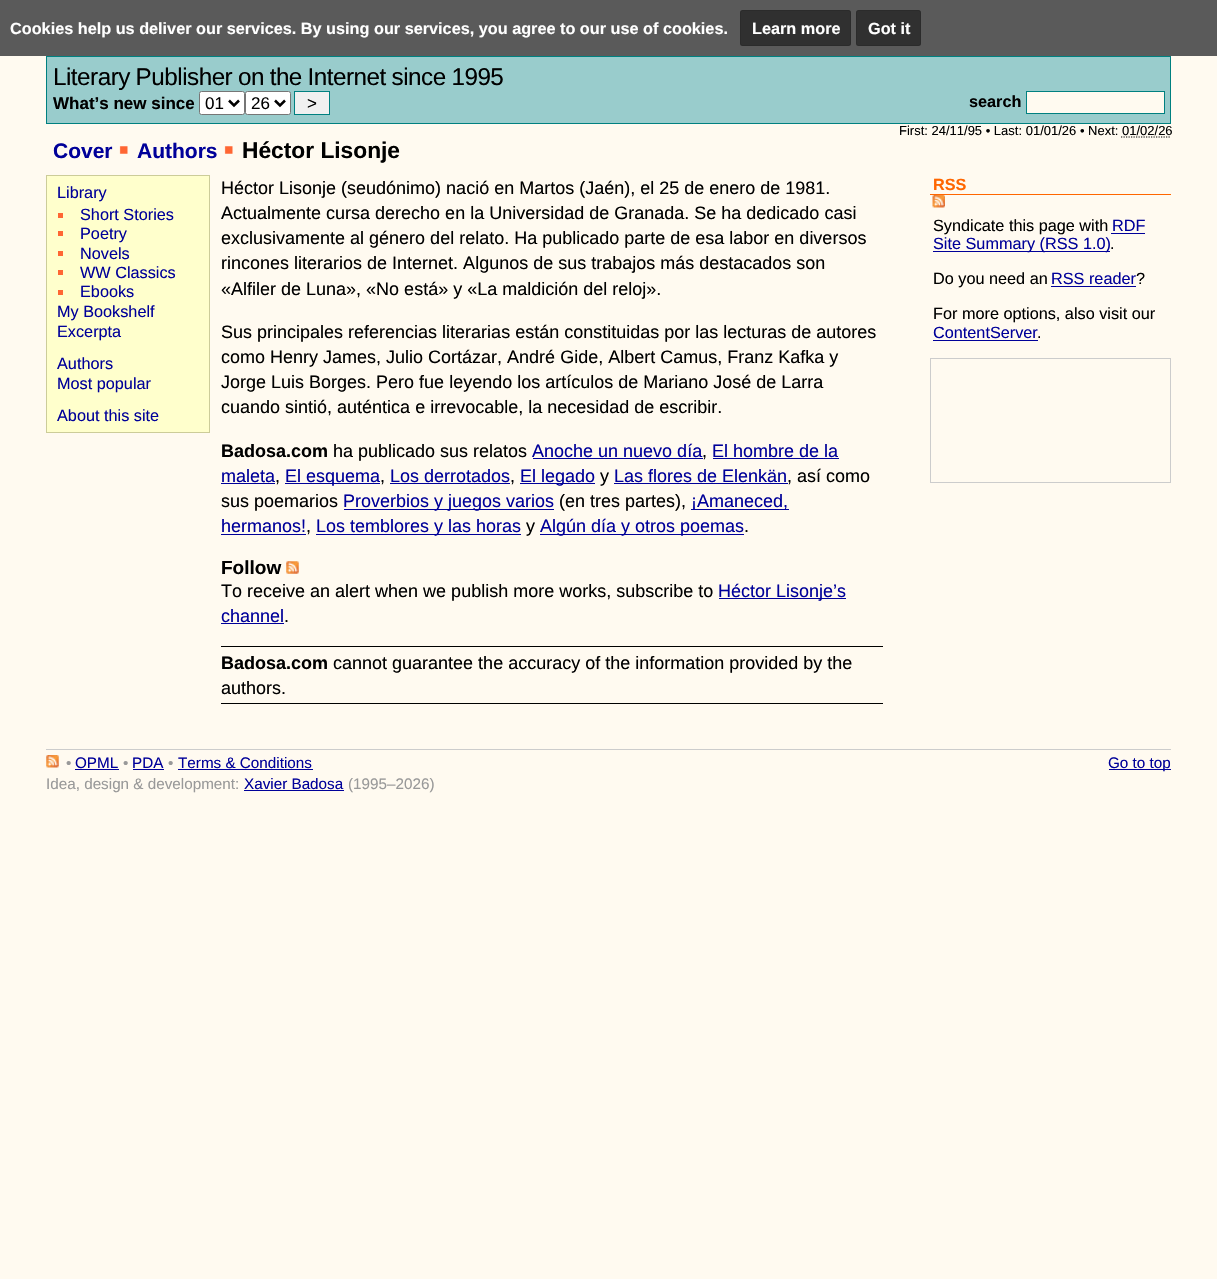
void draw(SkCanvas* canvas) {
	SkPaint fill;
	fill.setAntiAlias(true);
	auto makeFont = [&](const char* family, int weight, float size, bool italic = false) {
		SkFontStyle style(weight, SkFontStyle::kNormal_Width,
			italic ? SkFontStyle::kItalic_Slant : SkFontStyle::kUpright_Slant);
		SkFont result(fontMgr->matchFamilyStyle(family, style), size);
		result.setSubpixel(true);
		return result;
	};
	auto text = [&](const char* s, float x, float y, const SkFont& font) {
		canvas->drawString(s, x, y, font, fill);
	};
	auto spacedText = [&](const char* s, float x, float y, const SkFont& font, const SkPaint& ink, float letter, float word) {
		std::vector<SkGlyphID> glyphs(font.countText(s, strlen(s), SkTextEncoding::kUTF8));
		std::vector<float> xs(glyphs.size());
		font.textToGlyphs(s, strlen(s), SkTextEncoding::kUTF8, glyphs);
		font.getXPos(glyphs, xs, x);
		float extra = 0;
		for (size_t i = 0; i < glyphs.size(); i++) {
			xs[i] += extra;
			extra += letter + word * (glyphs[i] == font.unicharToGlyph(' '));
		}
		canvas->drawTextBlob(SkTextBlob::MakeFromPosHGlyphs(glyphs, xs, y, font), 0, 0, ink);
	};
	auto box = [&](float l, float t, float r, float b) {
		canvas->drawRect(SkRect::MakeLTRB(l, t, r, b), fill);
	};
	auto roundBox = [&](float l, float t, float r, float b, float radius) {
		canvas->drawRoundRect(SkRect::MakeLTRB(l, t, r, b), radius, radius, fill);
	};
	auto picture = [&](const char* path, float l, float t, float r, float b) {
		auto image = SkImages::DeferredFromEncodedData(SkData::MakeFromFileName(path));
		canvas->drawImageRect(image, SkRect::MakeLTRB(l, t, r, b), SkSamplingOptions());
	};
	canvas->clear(0xFFFFFAF0);
	fill.setColor(0xFF5A5A5A);
	box(0, 0, 1217, 56);
	fill.setColor(0xFF303030);
	roundBox(740, 10, 851, 46, 2.5f);
	fill.setStyle(SkPaint::kStroke_Style);
	fill.setStrokeWidth(1);
	fill.setColor(0x1A000000);
	canvas->drawRoundRect(SkRect::MakeLTRB(740.5f, 10.5f, 850.5f, 45.5f), 2, 2, fill);
	fill.setStyle(SkPaint::kFill_Style);
	fill.setColor(0xFF303030);
	roundBox(856, 10, 921, 46, 2.5f);
	fill.setStyle(SkPaint::kStroke_Style);
	fill.setColor(0x1A000000);
	canvas->drawRoundRect(SkRect::MakeLTRB(856.5f, 10.5f, 920.5f, 45.5f), 2, 2, fill);
	fill.setStyle(SkPaint::kFill_Style);
	fill.setColor(0xFF99CCCC);
	canvas->drawRect(SkRect::MakeLTRB(46.5f, 56.5f, 1170.5f, 123.5f), fill);
	fill.setStyle(SkPaint::kStroke_Style);
	fill.setColor(0xFF008080);
	canvas->drawRect(SkRect::MakeLTRB(46.5f, 56.5f, 1170.5f, 123.5f), fill);
	fill.setStyle(SkPaint::kFill_Style);
	fill.setColor(0xFFFFFFFF);
	canvas->drawRoundRect(SkRect::MakeLTRB(199.5f, 91.5f, 244.5f, 114.5f), 2, 2, fill);
	fill.setStyle(SkPaint::kStroke_Style);
	fill.setColor(0xFF767676);
	canvas->drawRoundRect(SkRect::MakeLTRB(199.5f, 91.5f, 244.5f, 114.5f), 2, 2, fill);
	fill.setStrokeWidth(2.5f);
	fill.setColor(0xFF000000);
	canvas->drawPath(SkPathBuilder().moveTo(229, 100.5f).lineTo(234, 105.5f).lineTo(239, 100.5f).detach(), fill);
	fill.setStyle(SkPaint::kFill_Style);
	fill.setColor(0xFFFFFFFF);
	canvas->drawRoundRect(SkRect::MakeLTRB(245.5f, 91.5f, 290.5f, 114.5f), 2, 2, fill);
	fill.setStyle(SkPaint::kStroke_Style);
	fill.setStrokeWidth(1);
	fill.setColor(0xFF767676);
	canvas->drawRoundRect(SkRect::MakeLTRB(245.5f, 91.5f, 290.5f, 114.5f), 2, 2, fill);
	fill.setStrokeWidth(2.5f);
	fill.setColor(0xFF000000);
	canvas->drawPath(SkPathBuilder().moveTo(275, 100.5f).lineTo(280, 105.5f).lineTo(285, 100.5f).detach(), fill);
	fill.setStyle(SkPaint::kFill_Style);
	fill.setColor(0xFFF0F0F0);
	canvas->drawRect(SkRect::MakeLTRB(294.5f, 91.5f, 329.5f, 114.5f), fill);
	fill.setStyle(SkPaint::kStroke_Style);
	fill.setStrokeWidth(1);
	fill.setColor(0xFF008080);
	canvas->drawRect(SkRect::MakeLTRB(294.5f, 91.5f, 329.5f, 114.5f), fill);
	fill.setStyle(SkPaint::kFill_Style);
	fill.setColor(0xFFFFFAF0);
	canvas->drawRect(SkRect::MakeLTRB(1026.5f, 91.5f, 1164.5f, 113.5f), fill);
	fill.setStyle(SkPaint::kStroke_Style);
	fill.setColor(0xFF008080);
	canvas->drawRect(SkRect::MakeLTRB(1026.5f, 91.5f, 1164.5f, 113.5f), fill);
	fill.setStrokeWidth(1.2f);
	fill.setColor(0xFF000000);
	fill.setPathEffect(SkDashPathEffect::Make({{1.25f, 1.25f}}, 0));
	canvas->drawPath(SkPathBuilder().moveTo(1121, 137).lineTo(1171, 137).detach(), fill);
	fill.setPathEffect(nullptr);
	picture("image0.png", 119, 146, 128, 154);
	picture("image0.png", 224, 146, 233, 154);
	fill.setStyle(SkPaint::kFill_Style);
	fill.setColor(0xFFFFFFCC);
	canvas->drawRect(SkRect::MakeLTRB(46.5f, 175.5f, 209.5f, 432.5f), fill);
	fill.setStyle(SkPaint::kStroke_Style);
	fill.setStrokeWidth(1);
	fill.setColor(0xFFCCCC99);
	canvas->drawRect(SkRect::MakeLTRB(46.5f, 175.5f, 209.5f, 432.5f), fill);
	fill.setStyle(SkPaint::kFill_Style);
	fill.setColor(0xFFFF6633);
	box(58, 213, 63, 218);
	box(58, 231, 63, 236);
	box(58, 251, 63, 256);
	box(58, 270, 63, 275);
	box(58, 290, 63, 295);
	fill.setColor(0xFF000099);
	box(533, 458, 703, 459);
	box(713, 458, 839, 459);
	box(221, 483, 275, 484);
	box(285, 483, 380, 484);
	box(390, 483, 510, 484);
	box(520, 483, 595, 484);
	box(614, 483, 788, 484);
	box(344, 509, 554, 510);
	box(691, 509, 789, 510);
	box(221, 534, 306, 535);
	box(316, 534, 521, 535);
	box(540, 534, 744, 535);
	picture("image1.png", 286, 561, 299, 574);
	box(719, 598, 846, 599);
	box(221, 623, 284, 624);
	fill.setColor(0xFF000000);
	box(221, 646, 883, 647);
	box(221, 703, 883, 704);
	fill.setColor(0xFFFF6600);
	box(930, 194, 1171, 195);
	picture("image2.png", 932, 195, 945, 208);
	fill.setColor(0xFF000099);
	box(1111, 233, 1145, 234);
	box(933, 251, 1110, 252);
	box(1051, 286, 1136, 287);
	box(933, 340, 1038, 341);
	fill.setStyle(SkPaint::kStroke_Style);
	fill.setColor(0xFFCCCCCC);
	canvas->drawRect(SkRect::MakeLTRB(930.5f, 358.5f, 1170.5f, 482.5f), fill);
	fill.setStyle(SkPaint::kFill_Style);
	box(46, 749, 1171, 750);
	picture("image3.png", 46, 755, 59, 768);
	fill.setColor(0xFF000099);
	box(75, 769, 119, 770);
	box(133, 769, 164, 770);
	box(178, 769, 313, 770);
	box(1109, 769, 1171, 770);
	box(244, 790, 344, 791);
	auto font1 = makeFont("Liberation Sans", 700, 16.25f);
	fill.setColor(0xFFFFFFFF);
	text("Cookies help us deliver our services. By using our services, you agree to our use of cookies.", 10, 34, font1);
	text("Learn more", 752, 34, font1);
	text("Got it", 868, 34, font1);
	auto font2 = makeFont("Liberation Sans", 400, 24.25f);
	fill.setColor(0xFF000000);
	spacedText("Literary Publisher on the Internet since 1995", 53, 85, font2, fill, -0.5f, -0.5f);
	auto font3 = makeFont("Liberation Sans", 700, 17);
	text("What’s new since", 53, 109, font3);
	auto font4 = makeFont("Liberation Sans", 400, 17);
	text("01", 205, 109, font4);
	text("26", 251, 109, font4);
	text(">", 307, 109, font4);
	text("search", 969, 107, font1);
	auto font5 = makeFont("Liberation Sans", 400, 13);
	text("First: 24/11/95 • Last: 01/01/26 • Next: 01/02/26", 899, 135, font5);
	auto font6 = makeFont("Liberation Sans", 700, 21);
	fill.setColor(0xFF000099);
	text("Cover", 53, 158, font6);
	text("Authors", 137, 158, font6);
	auto font7 = makeFont("Liberation Sans", 700, 22.75f);
	fill.setColor(0xFF000000);
	text("Héctor Lisonje", 242, 158, font7);
	auto font8 = makeFont("Liberation Sans", 400, 16.25f);
	fill.setColor(0xFF000099);
	text("Library", 57, 198, font8);
	text("Short Stories", 80, 220, font8);
	text("Poetry", 80, 239, font8);
	text("Novels", 80, 259, font8);
	text("WW Classics", 80, 278, font8);
	text("Ebooks", 80, 297, font8);
	text("My Bookshelf", 57, 317, font8);
	text("Excerpta", 57, 337, font8);
	text("Authors", 57, 369, font8);
	text("Most popular", 57, 389, font8);
	text("About this site", 57, 421, font8);
	auto font9 = makeFont("Liberation Sans", 400, 18);
	fill.setColor(0xFF000000);
	text("Héctor Lisonje (seudónimo) nació en Martos (Jaén), el 25 de enero de 1981.", 221, 194, font9);
	text("Actualmente cursa derecho en la Universidad de Granada. Se ha dedicado casi", 221, 219, font9);
	text("exclusivamente al género del relato. Ha publicado parte de esa labor en diversos", 221, 244, font9);
	text("rincones literarios de Internet. Algunos de sus trabajos más destacados son", 221, 269, font9);
	text("«Alfiler de Luna», «No está» y «La maldición del reloj».", 221, 295, font9);
	text("Sus principales referencias literarias están constituidas por las lecturas de autores", 221, 338, font9);
	text("como Henry James, Julio Cortázar, André Gide, Albert Camus, Franz Kafka y", 221, 363, font9);
	text("Jorge Luis Borges. Pero fue leyendo los artículos de Mariano José de Larra", 221, 388, font9);
	text("cuando sintió, auténtica e irrevocable, la necesidad de escribir.", 221, 413, font9);
	auto font10 = makeFont("Liberation Sans", 700, 18);
	text("Badosa.com", 221, 457, font10);
	text("ha publicado sus relatos", 333, 457, font9);
	fill.setColor(0xFF000099);
	text("Anoche un nuevo día", 532, 457, font9);
	fill.setColor(0xFF000000);
	text(",", 702, 457, font9);
	fill.setColor(0xFF000099);
	text("El hombre de la", 712, 457, font9);
	text("maleta", 221, 482, font9);
	fill.setColor(0xFF000000);
	text(",", 275, 482, font9);
	fill.setColor(0xFF000099);
	text("El esquema", 285, 482, font9);
	fill.setColor(0xFF000000);
	text(",", 380, 482, font9);
	fill.setColor(0xFF000099);
	text("Los derrotados", 390, 482, font9);
	fill.setColor(0xFF000000);
	text(",", 510, 482, font9);
	fill.setColor(0xFF000099);
	text("El legado", 520, 482, font9);
	fill.setColor(0xFF000000);
	text("y", 600, 482, font9);
	fill.setColor(0xFF000099);
	text("Las flores de Elenkän", 614, 482, font9);
	fill.setColor(0xFF000000);
	text(", así como", 787, 482, font9);
	text("sus poemarios", 221, 507, font9);
	fill.setColor(0xFF000099);
	text("Proverbios y juegos varios", 343, 507, font9);
	fill.setColor(0xFF000000);
	text("(en tres partes),", 559, 507, font9);
	fill.setColor(0xFF000099);
	text("¡Amaneced,", 691, 507, font9);
	text("hermanos!", 221, 532, font9);
	fill.setColor(0xFF000000);
	text(",", 306, 532, font9);
	fill.setColor(0xFF000099);
	text("Los temblores y las horas", 316, 532, font9);
	fill.setColor(0xFF000000);
	text("y", 526, 532, font9);
	fill.setColor(0xFF000099);
	text("Algún día y otros poemas", 540, 532, font9);
	fill.setColor(0xFF000000);
	text(".", 744, 532, font9);
	auto font11 = makeFont("Liberation Sans", 700, 19);
	text("Follow", 221, 574, font11);
	text("To receive an alert when we publish more works, subscribe to", 221, 597, font9);
	fill.setColor(0xFF000099);
	text("Héctor Lisonje’s", 718, 597, font9);
	text("channel", 221, 622, font9);
	fill.setColor(0xFF000000);
	text(".", 284, 622, font9);
	text("Badosa.com", 221, 669, font10);
	text("cannot guarantee the accuracy of the information provided by the", 333, 669, font9);
	text("authors.", 221, 694, font9);
	fill.setColor(0xFFFF6600);
	text("RSS", 933, 190, font1);
	fill.setColor(0xFF000000);
	text("Syndicate this page with", 933, 231, font8);
	fill.setColor(0xFF000099);
	text("RDF", 1112, 231, font8);
	text("Site Summary (RSS 1.0)", 933, 249, font8);
	fill.setColor(0xFF000000);
	text(".", 1110, 249, font8);
	text("Do you need an", 933, 284, font8);
	fill.setColor(0xFF000099);
	text("RSS reader", 1051, 284, font8);
	fill.setColor(0xFF000000);
	text("?", 1136, 284, font8);
	text("For more options, also visit our", 933, 319, font8);
	fill.setColor(0xFF000099);
	text("ContentServer", 933, 338, font8);
	fill.setColor(0xFF000000);
	text(".", 1037, 338, font8);
	auto font12 = makeFont("Liberation Sans", 400, 15.25f);
	fill.setColor(0xFF999999);
	text("•", 66, 768, font12);
	fill.setColor(0xFF000099);
	text("OPML", 75, 768, font12);
	fill.setColor(0xFF999999);
	text("•", 123, 768, font12);
	fill.setColor(0xFF000099);
	text("PDA", 132, 768, font12);
	fill.setColor(0xFF999999);
	text("•", 168, 768, font12);
	fill.setColor(0xFF000099);
	text("Terms & Conditions", 178, 768, font12);
	text("Go to top", 1108, 768, font12);
	fill.setColor(0xFF999999);
	text("Idea, design & development:", 46, 789, font12);
	fill.setColor(0xFF000099);
	text("Xavier Badosa", 244, 789, font12);
	fill.setColor(0xFF999999);
	text("(1995–2026)", 348, 789, font12);
}
